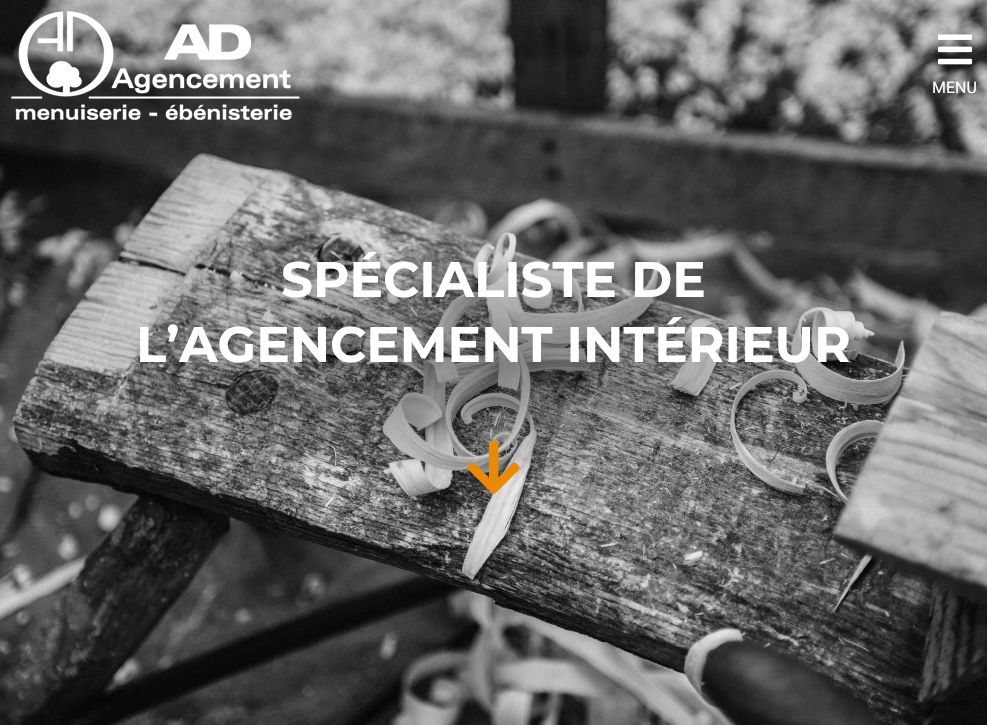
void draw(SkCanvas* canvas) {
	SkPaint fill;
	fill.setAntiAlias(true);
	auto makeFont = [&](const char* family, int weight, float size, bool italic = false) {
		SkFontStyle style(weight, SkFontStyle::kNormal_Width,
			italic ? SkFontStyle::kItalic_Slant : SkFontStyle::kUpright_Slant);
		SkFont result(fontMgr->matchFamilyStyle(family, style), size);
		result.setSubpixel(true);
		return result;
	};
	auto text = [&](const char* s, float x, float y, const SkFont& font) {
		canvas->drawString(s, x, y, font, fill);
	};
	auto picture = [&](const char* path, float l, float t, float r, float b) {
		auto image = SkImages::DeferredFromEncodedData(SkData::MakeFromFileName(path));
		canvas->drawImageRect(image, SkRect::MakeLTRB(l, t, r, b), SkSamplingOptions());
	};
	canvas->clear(0xFFFFFFFF);
	picture("image2.png", 0, 0, 987, 725);
	picture("image0.png", 11, 11, 300, 120);
	picture("image1.png", 937, 34, 973, 65);
	picture("image3.png", 467, 440, 520, 494);
	auto font1 = makeFont("Roboto", 400, 16);
	fill.setColor(0xFFFFFFFF);
	text("MENU", 932, 93, font1);
	auto font2 = makeFont("Montserrat", 700, 50);
	text("SPÉCIALISTE DE", 281, 297, font2);
	text("L’AGENCEMENT INTÉRIEUR", 136, 362, font2);
}
